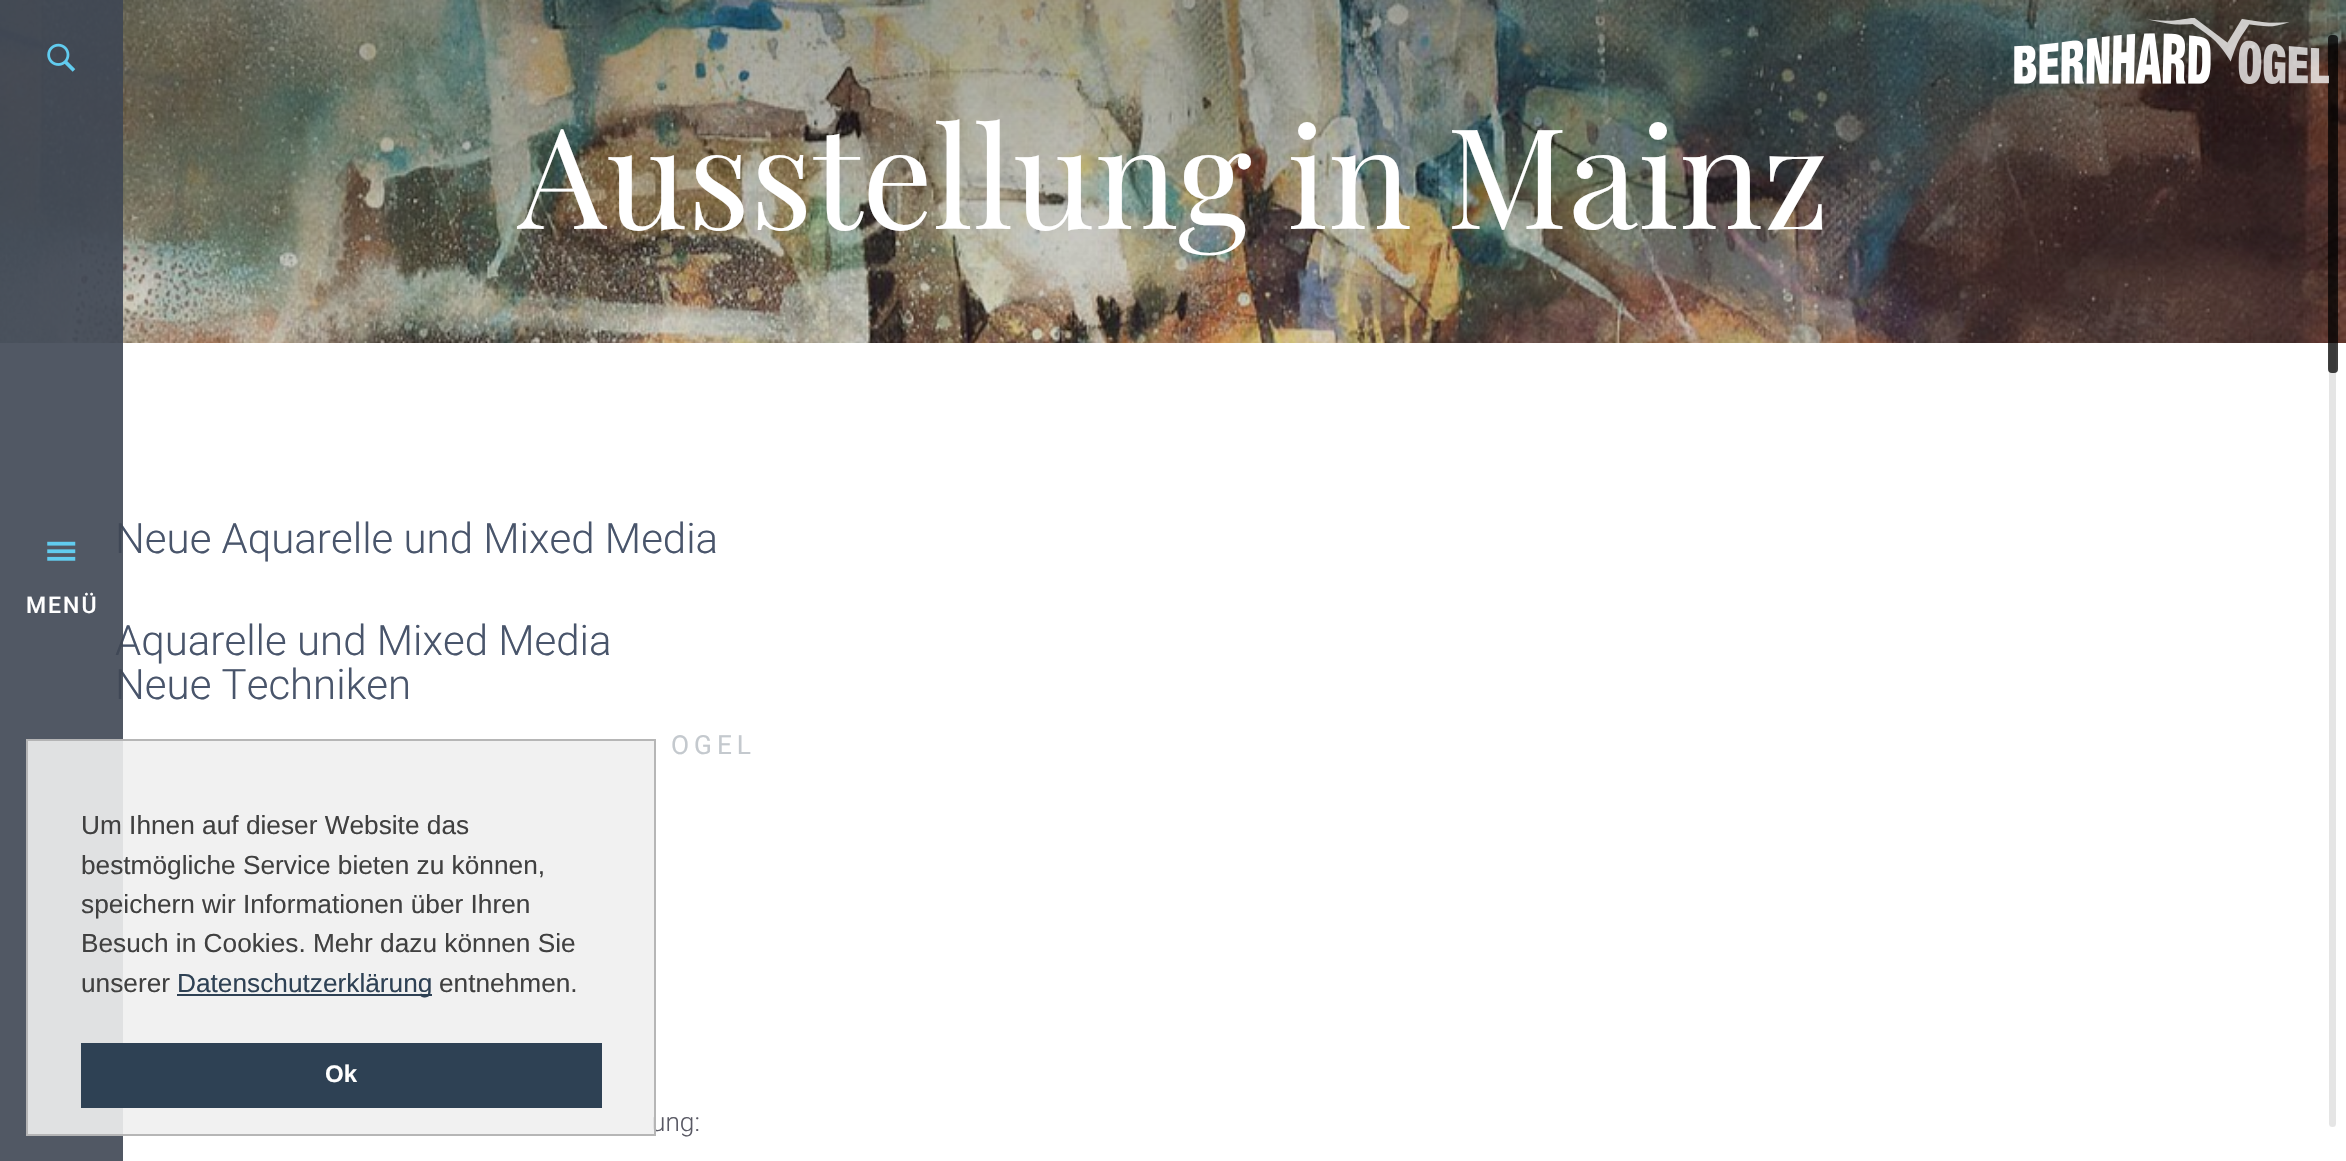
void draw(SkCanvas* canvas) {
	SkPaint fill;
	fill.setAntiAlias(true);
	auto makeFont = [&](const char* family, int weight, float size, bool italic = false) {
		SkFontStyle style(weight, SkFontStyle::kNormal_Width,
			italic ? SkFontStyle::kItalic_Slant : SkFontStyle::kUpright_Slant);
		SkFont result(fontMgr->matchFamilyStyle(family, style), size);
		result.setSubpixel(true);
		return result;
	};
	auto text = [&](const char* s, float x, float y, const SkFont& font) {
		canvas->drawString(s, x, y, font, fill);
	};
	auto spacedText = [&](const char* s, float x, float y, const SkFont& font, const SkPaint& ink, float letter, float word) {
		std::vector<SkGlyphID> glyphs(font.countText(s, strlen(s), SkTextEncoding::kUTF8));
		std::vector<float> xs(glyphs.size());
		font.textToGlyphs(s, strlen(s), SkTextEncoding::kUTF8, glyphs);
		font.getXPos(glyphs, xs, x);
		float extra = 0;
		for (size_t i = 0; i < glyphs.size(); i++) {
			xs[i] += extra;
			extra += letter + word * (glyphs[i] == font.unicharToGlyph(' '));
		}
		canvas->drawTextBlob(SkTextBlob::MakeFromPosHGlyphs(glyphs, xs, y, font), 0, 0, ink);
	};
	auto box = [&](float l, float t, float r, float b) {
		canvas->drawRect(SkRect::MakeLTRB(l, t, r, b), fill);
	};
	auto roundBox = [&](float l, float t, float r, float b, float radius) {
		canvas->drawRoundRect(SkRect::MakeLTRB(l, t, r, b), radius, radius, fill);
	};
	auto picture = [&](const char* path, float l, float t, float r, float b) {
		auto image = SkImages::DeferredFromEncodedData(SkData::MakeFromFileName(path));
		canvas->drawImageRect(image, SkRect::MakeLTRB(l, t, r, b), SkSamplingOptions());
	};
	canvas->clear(0xFFFFFFFF);
	picture("image3.png", 0, 0, 2346, 343);
	fill.setColor(0x1A000000);
	roundBox(2329, 35, 2336, 1127, 3.5f);
	fill.setColor(0xBF000000);
	roundBox(2328, 35, 2338, 373, 4);
	picture("image0.png", 2014, 18, 2329, 84);
	auto font1 = makeFont("Playfair Display", 400, 140);
	fill.setColor(0xFFFFFFFF);
	text("Ausstellung in Mainz", 518, 229, font1);
	auto font2 = makeFont("Roboto", 300, 42);
	fill.setColor(0xFF49556B);
	text("Neue Aquarelle und Mixed Media", 115, 553, font2);
	text("Aquarelle und Mixed Media", 115, 655, font2);
	text("Neue Techniken", 115, 699, font2);
	fill.setColor(0xE63E4653);
	box(0, 0, 123, 1161);
	picture("image1.png", 47, 43, 76, 72);
	auto font3 = makeFont("Roboto", 500, 23);
	fill.setColor(0xFFFFFFFF);
	spacedText("MENÜ", 26, 613, font3, fill, 2, 0);
	picture("image2.png", 47, 541, 76, 561);
	auto font4 = makeFont("Roboto", 400, 26.25f);
	fill.setColor(0xFFC4C9CE);
	spacedText("OGEL", 671, 754, font4, fill, 5, 0);
	auto font5 = makeFont("Roboto", 300, 26.25f);
	fill.setColor(0xFF595964);
	text("ung:", 651, 1131, font5);
	fill.setColor(0xE6F0F0F0);
	box(26, 739, 656, 1136);
	fill.setStyle(SkPaint::kStroke_Style);
	fill.setStrokeWidth(2);
	fill.setColor(0xE6AFAFAF);
	canvas->drawRect(SkRect::MakeLTRB(27, 740, 655, 1135), fill);
	auto font6 = makeFont("Liberation Sans", 400, 26.25f);
	fill.setStyle(SkPaint::kFill_Style);
	fill.setColor(0xFF404040);
	text("Um Ihnen auf dieser Website das", 81, 834, font6);
	text("bestmögliche Service bieten zu können,", 81, 874, font6);
	text("speichern wir Informationen über Ihren", 81, 913, font6);
	text("Besuch in Cookies. Mehr dazu können Sie", 81, 952, font6);
	text("unserer", 81, 992, font6);
	fill.setColor(0xFF2E4154);
	box(177, 994, 432, 996);
	text("Datenschutzerklärung", 177, 992, font6);
	fill.setColor(0xFF404040);
	text("entnehmen.", 439, 992, font6);
	fill.setColor(0xFF2E4154);
	box(81, 1043, 602, 1108);
	auto font7 = makeFont("Liberation Sans", 700, 24);
	fill.setColor(0xFFFFFFFF);
	text("Ok", 325, 1082, font7);
}
